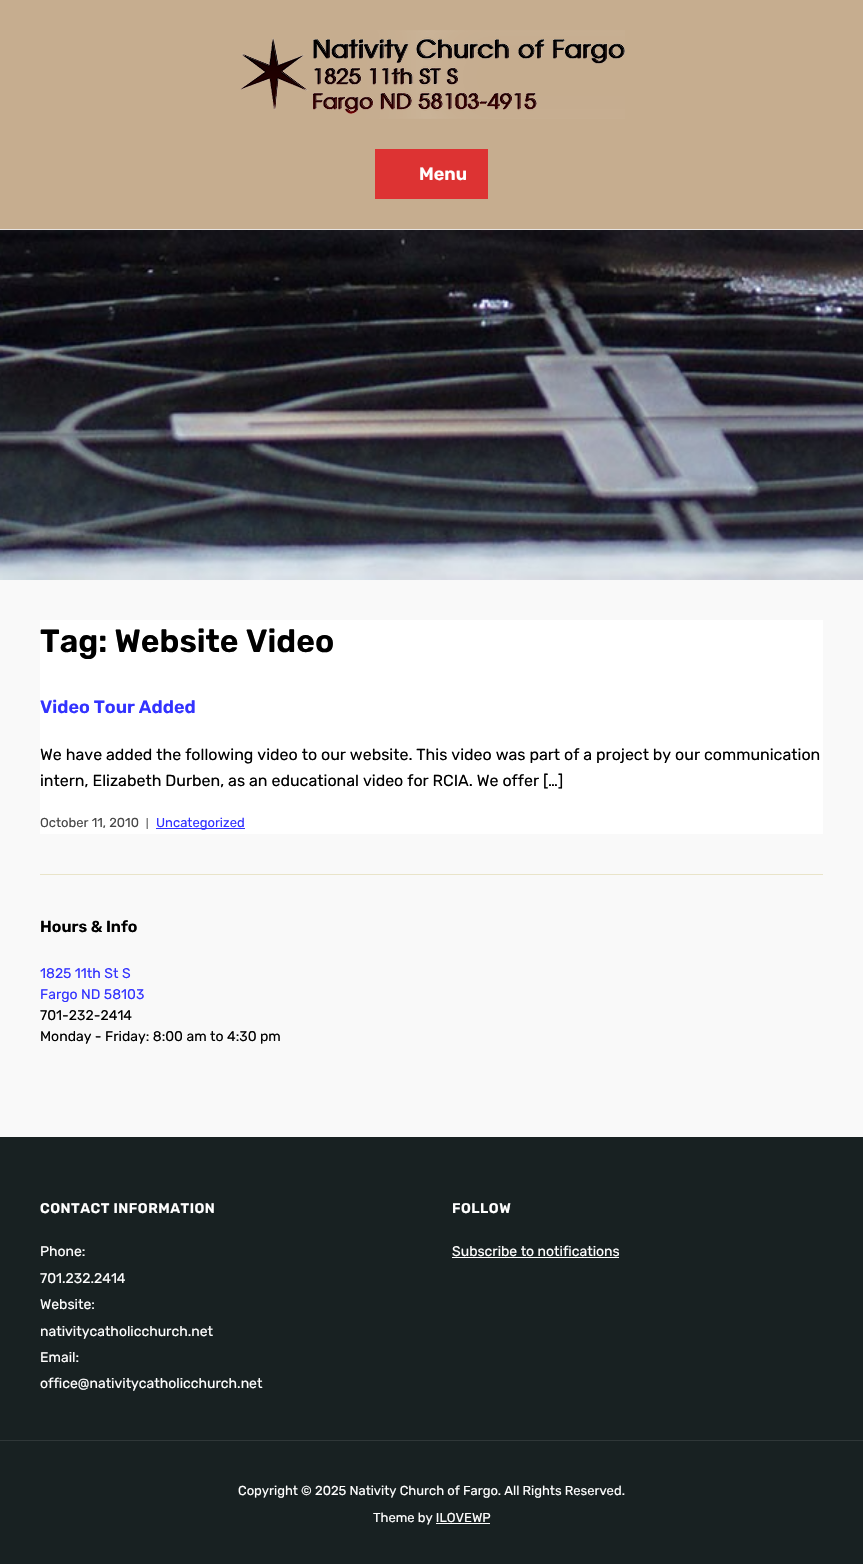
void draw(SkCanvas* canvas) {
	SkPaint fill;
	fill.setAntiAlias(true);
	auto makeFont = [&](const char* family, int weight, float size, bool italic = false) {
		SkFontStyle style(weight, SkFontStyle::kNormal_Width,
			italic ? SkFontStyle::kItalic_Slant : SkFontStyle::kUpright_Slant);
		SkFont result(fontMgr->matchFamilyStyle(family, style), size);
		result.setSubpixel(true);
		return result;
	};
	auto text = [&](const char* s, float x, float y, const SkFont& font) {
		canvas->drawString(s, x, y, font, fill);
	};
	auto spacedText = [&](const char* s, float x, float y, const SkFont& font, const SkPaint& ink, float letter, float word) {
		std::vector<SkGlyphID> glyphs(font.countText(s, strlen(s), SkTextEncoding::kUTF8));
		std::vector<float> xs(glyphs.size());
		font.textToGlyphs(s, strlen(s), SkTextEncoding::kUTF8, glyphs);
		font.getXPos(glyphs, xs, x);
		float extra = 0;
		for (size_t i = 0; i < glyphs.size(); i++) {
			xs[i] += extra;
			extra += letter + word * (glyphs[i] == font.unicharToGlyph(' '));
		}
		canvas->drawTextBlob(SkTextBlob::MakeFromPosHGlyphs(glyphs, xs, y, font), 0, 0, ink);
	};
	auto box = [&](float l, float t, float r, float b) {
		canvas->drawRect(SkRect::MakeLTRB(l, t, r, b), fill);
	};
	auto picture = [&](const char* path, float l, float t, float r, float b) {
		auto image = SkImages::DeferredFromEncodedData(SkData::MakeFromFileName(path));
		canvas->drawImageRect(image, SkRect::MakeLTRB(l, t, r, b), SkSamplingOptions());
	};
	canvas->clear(0xFFF9F9F9);
	fill.setColor(0xFFC6AD8F);
	box(0, 0, 863, 229);
	fill.setColor(0xFFE7E3E0);
	box(0, 229, 863, 230);
	picture("image0.png", 240, 30, 625, 119);
	fill.setColor(0xFFDD3333);
	box(375, 149, 488, 199);
	picture("image1.png", 0, 230, 863, 580);
	fill.setColor(0xFFFFFFFF);
	box(40, 620, 823, 834);
	fill.setColor(0xFF3333FF);
	box(156, 828, 245, 829);
	fill.setColor(0xFFE9E4C9);
	box(40, 874, 823, 875);
	fill.setColor(0xFF182122);
	box(0, 1137, 863, 1564);
	fill.setColor(0xFF2F3738);
	box(0, 1440, 863, 1441);
	fill.setColor(0xFFFFFFFF);
	box(452, 1257, 619, 1258);
	box(436, 1523, 490, 1524);
	auto font1 = makeFont("Rubik", 600, 18);
	text("Menu", 419, 180, font1);
	auto font2 = makeFont("Rubik", 600, 32);
	fill.setColor(0xFF000000);
	text("Tag: Website Video", 40, 652, font2);
	fill.setColor(0xFF3333FF);
	text("Video Tour Added", 40, 713, font1);
	auto font3 = makeFont("Rubik", 400, 16);
	fill.setColor(0xFF000000);
	text("We have added the following video to our website. This video was part of a project by our communication", 40, 760, font3);
	text("intern, Elizabeth Durben, as an educational video for RCIA. We offer […]", 40, 786, font3);
	auto font4 = makeFont("Rubik", 400, 13);
	fill.setColor(0xFF484848);
	text("October 11, 2010", 40, 827, font4);
	auto font5 = makeFont("Rubik", 400, 10);
	text("|", 146, 827, font5);
	fill.setColor(0xFF3333FF);
	text("Uncategorized", 156, 827, font4);
	auto font6 = makeFont("Rubik", 600, 16);
	fill.setColor(0xFF000000);
	text("Hours & Info", 40, 932, font6);
	auto font7 = makeFont("Rubik", 400, 14);
	fill.setColor(0xFF3333FF);
	text("1825 11th St S", 40, 978, font7);
	text("Fargo ND 58103", 40, 999, font7);
	fill.setColor(0xFF000000);
	text("701-232-2414", 40, 1020, font7);
	text("Monday - Friday: 8:00 am to 4:30 pm", 40, 1041, font7);
	auto font8 = makeFont("Rubik", 600, 14);
	fill.setColor(0xFFFFFFFF);
	spacedText("CONTACT INFORMATION", 40, 1213, font8, fill, 0.5f, 0);
	text("Phone:", 40, 1256, font7);
	text("701.232.2414", 40, 1283, font7);
	text("Website:", 40, 1309, font7);
	text("nativitycatholicchurch.net", 40, 1336, font7);
	text("Email:", 40, 1362, font7);
	text("office@nativitycatholicchurch.net", 40, 1388, font7);
	spacedText("FOLLOW", 452, 1213, font8, fill, 0.5f, 0);
	text("Subscribe to notifications", 452, 1256, font7);
	text("Copyright © 2025 Nativity Church of Fargo. All Rights Reserved.", 238, 1495, font4);
	text("Theme by ILOVEWP", 373, 1522, font4);
}
